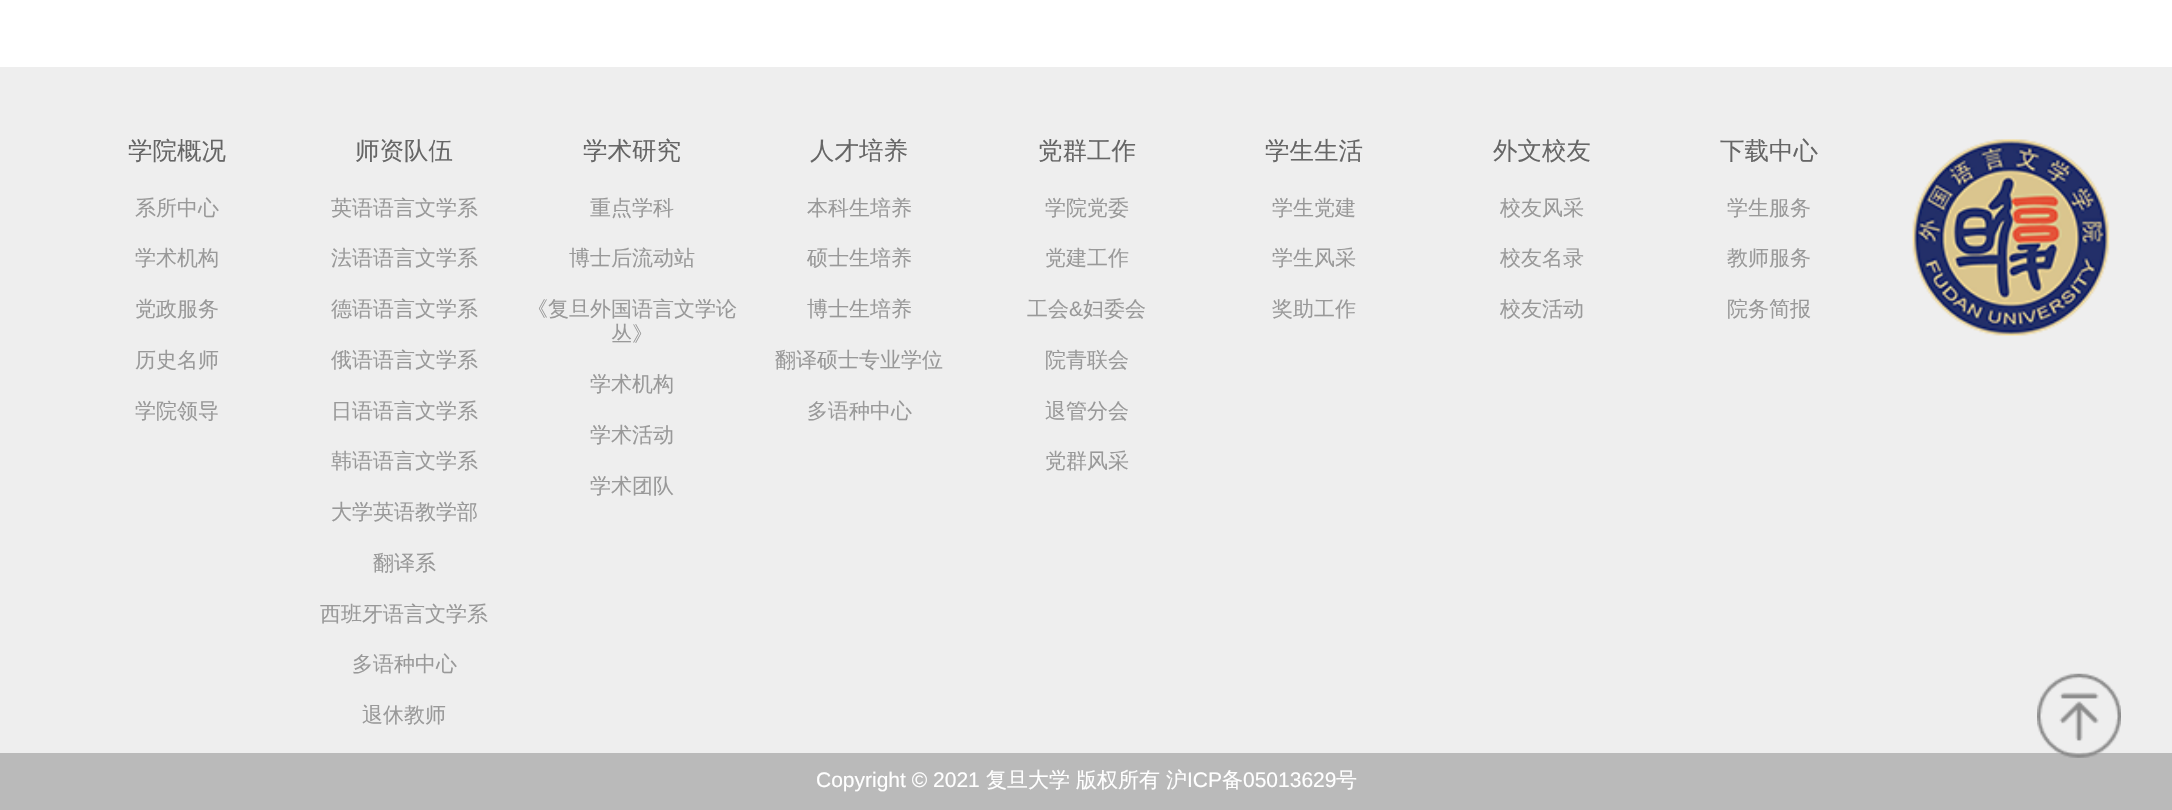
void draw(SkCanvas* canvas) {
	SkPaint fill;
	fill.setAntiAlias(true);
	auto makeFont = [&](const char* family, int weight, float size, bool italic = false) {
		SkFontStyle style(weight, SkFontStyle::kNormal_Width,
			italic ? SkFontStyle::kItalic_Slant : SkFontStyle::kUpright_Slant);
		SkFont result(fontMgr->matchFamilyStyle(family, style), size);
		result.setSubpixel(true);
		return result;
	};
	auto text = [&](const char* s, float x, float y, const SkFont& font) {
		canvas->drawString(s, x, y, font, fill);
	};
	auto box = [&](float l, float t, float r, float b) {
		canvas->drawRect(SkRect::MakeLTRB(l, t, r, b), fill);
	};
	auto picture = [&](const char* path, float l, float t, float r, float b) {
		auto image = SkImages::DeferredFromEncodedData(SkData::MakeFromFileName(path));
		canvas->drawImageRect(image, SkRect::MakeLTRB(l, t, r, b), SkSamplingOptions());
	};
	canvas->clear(0xFFFFFFFF);
	fill.setColor(0xFFEEEEEE);
	box(0, 67, 2172, 753);
	picture("image0.png", 1912, 139, 2110, 336);
	fill.setColor(0xFFBABABA);
	box(0, 753, 2172, 810);
	picture("image1.png", 2037, 673, 2121, 758);
	auto font1 = makeFont("WenQuanYi Zen Hei", 500, 24.5f);
	fill.setColor(0xFF666666);
	text("学院概况", 128, 159, font1);
	auto font2 = makeFont("WenQuanYi Zen Hei", 500, 21);
	fill.setColor(0xFF999999);
	text("系所中心", 135, 215, font2);
	text("学术机构", 135, 265, font2);
	text("党政服务", 135, 316, font2);
	text("历史名师", 135, 367, font2);
	text("学院领导", 135, 418, font2);
	fill.setColor(0xFF666666);
	text("师资队伍", 355, 159, font1);
	fill.setColor(0xFF999999);
	text("英语语言文学系", 331, 215, font2);
	text("法语语言文学系", 331, 265, font2);
	text("德语语言文学系", 331, 316, font2);
	text("俄语语言文学系", 331, 367, font2);
	text("日语语言文学系", 331, 418, font2);
	text("韩语语言文学系", 331, 468, font2);
	text("大学英语教学部", 331, 519, font2);
	text("翻译系", 373, 570, font2);
	text("西班牙语言文学系", 320, 621, font2);
	text("多语种中心", 352, 671, font2);
	text("退休教师", 362, 722, font2);
	fill.setColor(0xFF666666);
	text("学术研究", 583, 159, font1);
	fill.setColor(0xFF999999);
	text("重点学科", 590, 215, font2);
	text("博士后流动站", 569, 265, font2);
	text("《复旦外国语言文学论", 527, 316, font2);
	text("丛》", 611, 341, font2);
	text("学术机构", 590, 391, font2);
	text("学术活动", 590, 442, font2);
	text("学术团队", 590, 493, font2);
	fill.setColor(0xFF666666);
	text("人才培养", 810, 159, font1);
	fill.setColor(0xFF999999);
	text("本科生培养", 807, 215, font2);
	text("硕士生培养", 807, 265, font2);
	text("博士生培养", 807, 316, font2);
	text("翻译硕士专业学位", 775, 367, font2);
	text("多语种中心", 807, 418, font2);
	fill.setColor(0xFF666666);
	text("党群工作", 1038, 159, font1);
	fill.setColor(0xFF999999);
	text("学院党委", 1045, 215, font2);
	text("党建工作", 1045, 265, font2);
	text("工会", 1027, 316, font2);
	auto font3 = makeFont("Liberation Sans", 400, 21);
	text("&", 1069, 316, font3);
	text("妇委会", 1083, 316, font2);
	text("院青联会", 1045, 367, font2);
	text("退管分会", 1045, 418, font2);
	text("党群风采", 1045, 468, font2);
	fill.setColor(0xFF666666);
	text("学生生活", 1265, 159, font1);
	fill.setColor(0xFF999999);
	text("学生党建", 1272, 215, font2);
	text("学生风采", 1272, 265, font2);
	text("奖助工作", 1272, 316, font2);
	fill.setColor(0xFF666666);
	text("外文校友", 1493, 159, font1);
	fill.setColor(0xFF999999);
	text("校友风采", 1500, 215, font2);
	text("校友名录", 1500, 265, font2);
	text("校友活动", 1500, 316, font2);
	fill.setColor(0xFF666666);
	text("下载中心", 1720, 159, font1);
	fill.setColor(0xFF999999);
	text("学生服务", 1727, 215, font2);
	text("教师服务", 1727, 265, font2);
	text("院务简报", 1727, 316, font2);
	fill.setColor(0xFFFFFFFF);
	text("Copyright © 2021", 816, 787, font3);
	text("复旦大学", 986, 787, font2);
	text("版权所有", 1076, 787, font2);
	text("沪", 1166, 787, font2);
	text("ICP", 1187, 787, font3);
	text("备", 1222, 787, font2);
	text("05013629", 1243, 787, font3);
	text("号", 1336, 787, font2);
}
